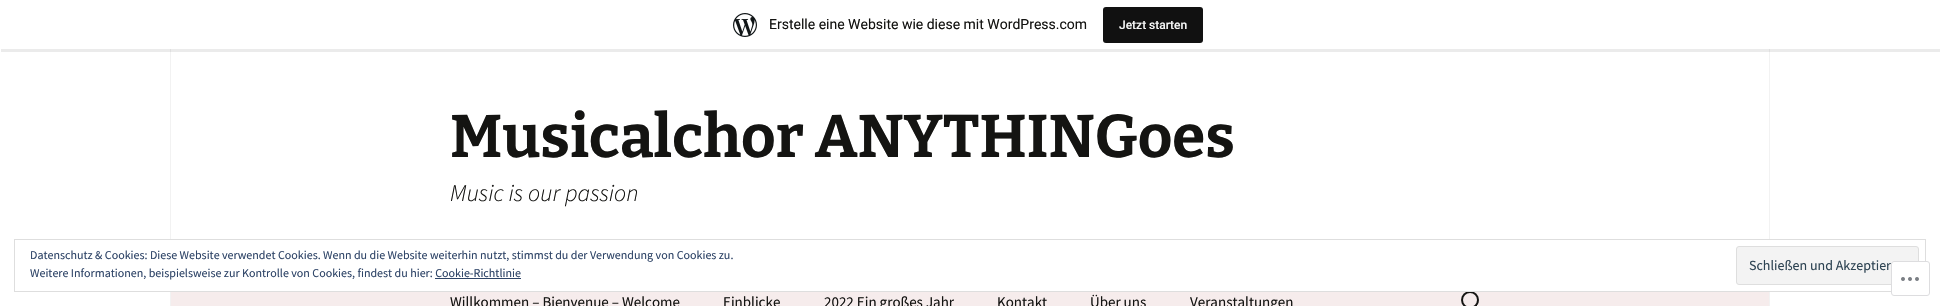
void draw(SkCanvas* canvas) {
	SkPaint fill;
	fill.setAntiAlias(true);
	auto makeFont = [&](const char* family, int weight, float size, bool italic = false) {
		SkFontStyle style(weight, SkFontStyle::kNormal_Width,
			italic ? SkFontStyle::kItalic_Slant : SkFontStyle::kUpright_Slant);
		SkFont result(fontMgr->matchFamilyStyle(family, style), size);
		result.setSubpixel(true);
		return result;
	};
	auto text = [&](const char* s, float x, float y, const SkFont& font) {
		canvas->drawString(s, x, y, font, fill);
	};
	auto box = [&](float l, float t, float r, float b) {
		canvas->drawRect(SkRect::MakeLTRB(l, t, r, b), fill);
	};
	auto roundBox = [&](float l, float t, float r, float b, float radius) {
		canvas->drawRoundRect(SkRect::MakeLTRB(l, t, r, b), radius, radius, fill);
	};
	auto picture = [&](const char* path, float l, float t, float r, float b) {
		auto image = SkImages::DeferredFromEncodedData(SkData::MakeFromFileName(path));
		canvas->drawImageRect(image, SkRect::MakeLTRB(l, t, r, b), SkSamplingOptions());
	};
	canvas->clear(0xFFFFFFFF);
	fill.setColor(0xFFF2F2F2);
	box(1769, 49, 1770, 306);
	box(170, 49, 171, 306);
	fill.setColor(0x14000000);
	canvas->drawPath(SkPathBuilder().moveTo(1, 49).lineTo(1, 52).lineTo(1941, 52).lineTo(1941, 3).lineTo(1940, 3).lineTo(1940, 49).close().detach(), fill);
	picture("image0.png", 733, 13, 757, 37);
	fill.setColor(0xFF111111);
	roundBox(1103, 7, 1203, 43, 3);
	fill.setColor(0xFFF6ECEC);
	box(171, 292, 1769, 306);
	picture("image1.png", 1461, 292, 1479, 306);
	fill.setColor(0xFFFFFFFF);
	box(170, 240, 1770, 291);
	fill.setStyle(SkPaint::kStroke_Style);
	fill.setStrokeWidth(1);
	fill.setColor(0xFFDEDEDE);
	canvas->drawRect(SkRect::MakeLTRB(14.5f, 239.5f, 1925.5f, 291.5f), fill);
	fill.setStyle(SkPaint::kFill_Style);
	fill.setColor(0xFFF3F3F3);
	canvas->drawRoundRect(SkRect::MakeLTRB(1736.5f, 246.5f, 1918.5f, 284.5f), 2.5f, 2.5f, fill);
	fill.setStyle(SkPaint::kStroke_Style);
	fill.setColor(0xFFDEDEDE);
	canvas->drawRoundRect(SkRect::MakeLTRB(1736.5f, 246.5f, 1918.5f, 284.5f), 2.5f, 2.5f, fill);
	fill.setStyle(SkPaint::kFill_Style);
	fill.setColor(0xFF2E4467);
	box(435, 278, 521, 279);
	auto font1 = makeFont("Roboto", 400, 14);
	fill.setColor(0xFF141412);
	text("Erstelle eine Website wie diese mit WordPress.com", 769, 29, font1);
	auto font2 = makeFont("Roboto", 500, 12);
	fill.setColor(0xFFF6F7F7);
	text("Jetzt starten", 1119, 29, font2);
	auto font3 = makeFont("Bitter", 700, 60);
	fill.setColor(0xFF141412);
	text("Musicalchor ANYTHINGoes", 450, 157, font3);
	auto font4 = makeFont("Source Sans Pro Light", 300, 24, true);
	text("Music is our passion", 450, 201, font4);
	auto font5 = makeFont("Source Sans Pro", 400, 15);
	text("Willkommen – Bienvenue – Welcome", 450, 307, font5);
	text("Einblicke", 723, 307, font5);
	text("2022 Ein großes Jahr", 824, 307, font5);
	text("Kontakt", 997, 307, font5);
	text("Über uns", 1090, 307, font5);
	text("Veranstaltungen", 1190, 307, font5);
	auto font6 = makeFont("Source Sans Pro", 400, 12);
	fill.setColor(0xFF2E4467);
	text("Datenschutz & Cookies: Diese Website verwendet Cookies. Wenn du die Website weiterhin nutzt, stimmst du der Verwendung von Cookies zu.", 30, 259, font6);
	text("Weitere Informationen, beispielsweise zur Kontrolle von Cookies, findest du hier: Cookie-Richtlinie", 30, 277, font6);
	auto font7 = makeFont("Source Sans Pro", 400, 14);
	fill.setColor(0xFF2E4453);
	text("Schließen und Akzeptier", 1749, 270, font7);
	fill.setColor(0xFAFFFFFF);
	roundBox(1891, 261, 1930, 296, 3);
	fill.setStyle(SkPaint::kStroke_Style);
	fill.setColor(0xFADCDCDE);
	canvas->drawRoundRect(SkRect::MakeLTRB(1891.5f, 261.5f, 1929.5f, 295.5f), 2.5f, 2.5f, fill);
	picture("image2.png", 1901, 277, 1919, 281);
}
